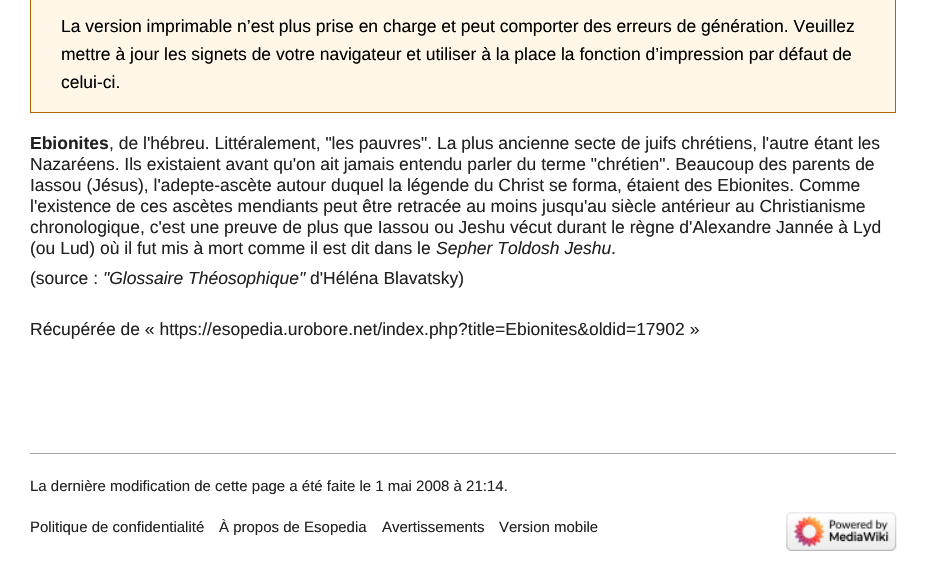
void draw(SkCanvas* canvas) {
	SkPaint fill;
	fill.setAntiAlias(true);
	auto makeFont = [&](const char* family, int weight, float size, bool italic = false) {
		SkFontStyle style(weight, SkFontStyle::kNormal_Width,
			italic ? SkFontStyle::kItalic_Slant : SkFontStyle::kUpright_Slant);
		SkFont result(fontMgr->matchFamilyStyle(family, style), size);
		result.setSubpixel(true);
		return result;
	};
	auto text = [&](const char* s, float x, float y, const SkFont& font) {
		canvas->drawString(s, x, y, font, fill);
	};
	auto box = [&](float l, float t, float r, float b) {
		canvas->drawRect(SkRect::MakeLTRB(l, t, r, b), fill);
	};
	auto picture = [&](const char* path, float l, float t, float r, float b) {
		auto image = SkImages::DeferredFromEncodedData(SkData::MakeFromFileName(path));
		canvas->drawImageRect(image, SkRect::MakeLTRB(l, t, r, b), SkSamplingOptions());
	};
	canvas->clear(0xFFFFFFFF);
	fill.setColor(0xFFFEF6E7);
	canvas->drawRect(SkRect::MakeLTRB(30.5f, -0.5f, 895.5f, 112.5f), fill);
	fill.setStyle(SkPaint::kStroke_Style);
	fill.setStrokeWidth(1);
	fill.setColor(0xFFAC6600);
	canvas->drawRect(SkRect::MakeLTRB(30.5f, -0.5f, 895.5f, 112.5f), fill);
	fill.setStyle(SkPaint::kFill_Style);
	fill.setColor(0xFFA2A9B1);
	box(30, 453, 896, 454);
	picture("image0.png", 786, 512, 897, 551);
	auto font1 = makeFont("Liberation Sans", 400, 17.5f);
	fill.setColor(0xFF000000);
	text("La version imprimable n’est plus prise en charge et peut comporter des erreurs de génération. Veuillez", 61, 32, font1);
	text("mettre à jour les signets de votre navigateur et utiliser à la place la fonction d’impression par défaut de", 61, 60, font1);
	text("celui-ci.", 61, 88, font1);
	auto font2 = makeFont("Liberation Sans", 700, 17.5f);
	fill.setColor(0xFF202122);
	text("Ebionites", 30, 149, font2);
	text(", de l'hébreu. Littéralement, \"les pauvres\". La plus ancienne secte de juifs chrétiens, l'autre étant les", 109, 149, font1);
	text("Nazaréens. Ils existaient avant qu'on ait jamais entendu parler du terme \"chrétien\". Beaucoup des parents de", 30, 170, font1);
	text("Iassou (Jésus), l'adepte-ascète autour duquel la légende du Christ se forma, étaient des Ebionites. Comme", 30, 191, font1);
	text("l'existence de ces ascètes mendiants peut être retracée au moins jusqu'au siècle antérieur au Christianisme", 30, 212, font1);
	text("chronologique, c'est une preuve de plus que Iassou ou Jeshu vécut durant le règne d'Alexandre Jannée à Lyd", 30, 233, font1);
	text("(ou Lud) où il fut mis à mort comme il est dit dans le", 30, 254, font1);
	auto font3 = makeFont("Liberation Sans", 400, 17.5f, true);
	text("Sepher Toldosh Jeshu", 436, 254, font3);
	text(".", 611, 254, font1);
	text("(source :", 30, 284, font1);
	text("\"Glossaire Théosophique\"", 103, 284, font3);
	text("d'Héléna Blavatsky)", 310, 284, font1);
	text("Récupérée de « https://esopedia.urobore.net/index.php?title=Ebionites&oldid=17902 »", 30, 335, font1);
	auto font4 = makeFont("Liberation Sans", 400, 15);
	text("La dernière modification de cette page a été faite le 1 mai 2008 à 21:14.", 30, 491, font4);
	text("Politique de confidentialité", 30, 532, font4);
	text("À propos de Esopedia", 219, 532, font4);
	text("Avertissements", 382, 532, font4);
	text("Version mobile", 499, 532, font4);
}
